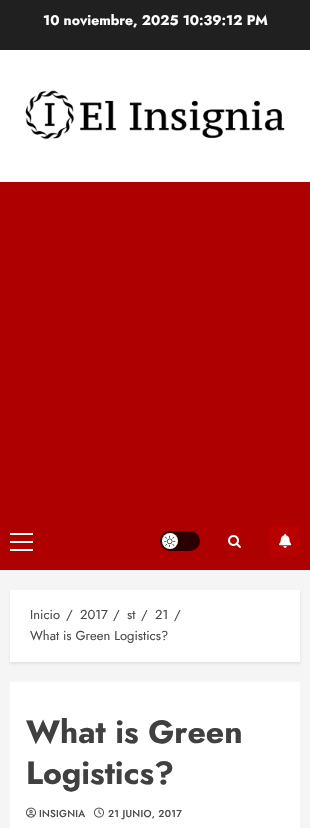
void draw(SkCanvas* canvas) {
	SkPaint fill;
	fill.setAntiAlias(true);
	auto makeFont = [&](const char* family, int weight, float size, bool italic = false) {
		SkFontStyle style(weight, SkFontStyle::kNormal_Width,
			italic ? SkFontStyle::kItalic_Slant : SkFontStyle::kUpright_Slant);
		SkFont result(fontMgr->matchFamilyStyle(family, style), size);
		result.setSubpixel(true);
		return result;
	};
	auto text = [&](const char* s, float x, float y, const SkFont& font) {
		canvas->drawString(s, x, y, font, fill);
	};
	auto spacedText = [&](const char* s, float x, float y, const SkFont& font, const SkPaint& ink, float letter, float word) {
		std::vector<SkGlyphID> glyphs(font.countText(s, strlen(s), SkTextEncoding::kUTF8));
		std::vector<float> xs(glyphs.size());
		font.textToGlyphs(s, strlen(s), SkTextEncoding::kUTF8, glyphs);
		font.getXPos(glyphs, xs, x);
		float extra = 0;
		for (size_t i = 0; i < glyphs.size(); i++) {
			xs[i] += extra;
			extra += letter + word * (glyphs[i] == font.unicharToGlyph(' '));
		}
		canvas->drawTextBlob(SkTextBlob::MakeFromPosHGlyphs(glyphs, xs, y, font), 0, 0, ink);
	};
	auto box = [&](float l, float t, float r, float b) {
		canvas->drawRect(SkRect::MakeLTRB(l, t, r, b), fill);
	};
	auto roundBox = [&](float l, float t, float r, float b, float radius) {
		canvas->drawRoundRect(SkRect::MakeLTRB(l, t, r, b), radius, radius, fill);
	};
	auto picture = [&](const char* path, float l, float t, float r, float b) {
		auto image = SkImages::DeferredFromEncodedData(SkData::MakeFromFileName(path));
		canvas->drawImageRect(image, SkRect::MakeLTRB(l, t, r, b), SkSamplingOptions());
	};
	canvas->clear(0xFFF5F5F5);
	fill.setColor(0xFF202020);
	box(0, 0, 310, 50);
	fill.setColor(0xFFFFFFFF);
	box(0, 50, 310, 182);
	picture("image0.png", 25, 90, 285, 140);
	fill.setColor(0xFFAF0000);
	box(0, 182, 310, 570);
	fill.setColor(0xFFFFFFFF);
	box(10, 541, 33, 543);
	box(10, 533, 33, 535);
	box(10, 549, 33, 551);
	fill.setColor(0xFF2C0000);
	roundBox(160, 531, 200, 551, 10);
	fill.setColor(0xFFFFFFFF);
	canvas->drawCircle(170, 541, 8, fill);
	picture("image1.png", 164, 535, 176, 547);
	picture("image2.png", 228, 535, 241, 548);
	fill.setColor(0xFFB80000);
	box(270, 526, 300, 556);
	picture("image3.png", 279, 533, 292, 548);
	fill.setColor(0x14000000);
	fill.setMaskFilter(SkMaskFilter::MakeBlur(kNormal_SkBlurStyle, 1));
	canvas->drawRect(SkRect::MakeLTRB(10, 592, 300, 664), fill);
	fill.setMaskFilter(nullptr);
	fill.setColor(0xFFFFFFFF);
	box(10, 590, 300, 662);
	box(10, 682, 300, 828);
	picture("image4.png", 26, 807, 36, 818);
	picture("image5.png", 94, 807, 104, 818);
	auto font1 = makeFont("Jost", 700, 14);
	text("10 noviembre, 2025 10:39:12 PM", 43, 25, font1);
	auto font2 = makeFont("Jost", 400, 13);
	fill.setColor(0xFF4A4A4A);
	text("Inicio", 30, 619, font2);
	text("/", 66, 619, font2);
	text("2017", 80, 619, font2);
	text("/", 113, 619, font2);
	text("st", 127, 619, font2);
	text("/", 141, 619, font2);
	text("21", 155, 619, font2);
	text("/", 174, 619, font2);
	text("What is Green Logistics?", 30, 640, font2);
	auto font3 = makeFont("Jost", 700, 32);
	fill.setColor(0xFF404040);
	text("What is Green", 26, 743, font3);
	text("Logistics?", 26, 784, font3);
	auto font4 = makeFont("Jost", 500, 10);
	fill.setColor(0xFF4A4A4A);
	spacedText("INSIGNIA", 39, 817, font4, fill, 0.25f, 0);
	spacedText("21 JUNIO, 2017", 108, 817, font4, fill, 0.25f, 0);
}
